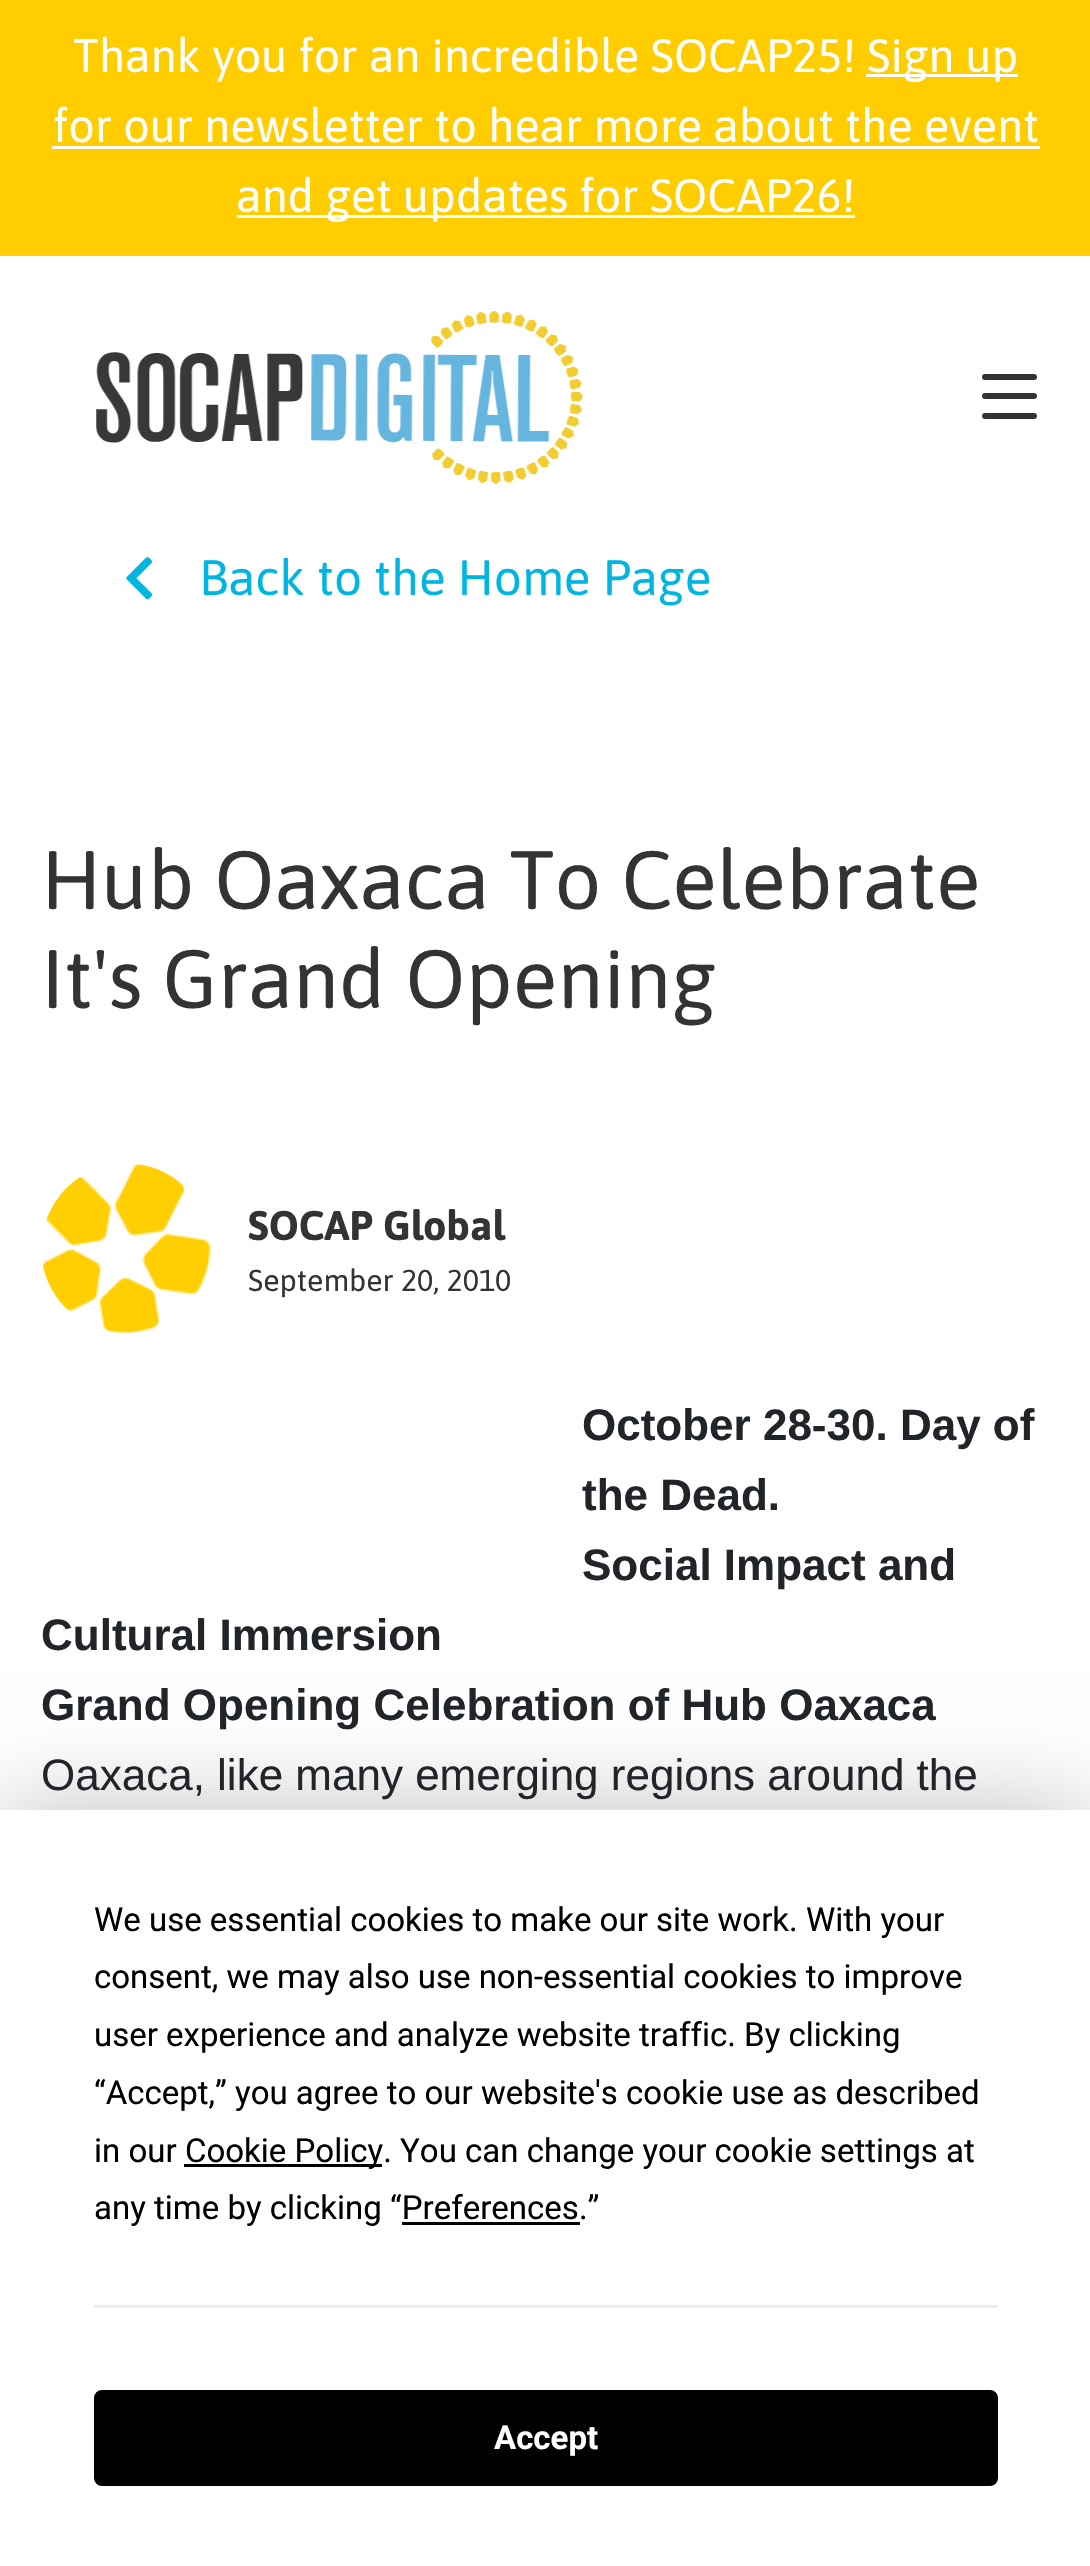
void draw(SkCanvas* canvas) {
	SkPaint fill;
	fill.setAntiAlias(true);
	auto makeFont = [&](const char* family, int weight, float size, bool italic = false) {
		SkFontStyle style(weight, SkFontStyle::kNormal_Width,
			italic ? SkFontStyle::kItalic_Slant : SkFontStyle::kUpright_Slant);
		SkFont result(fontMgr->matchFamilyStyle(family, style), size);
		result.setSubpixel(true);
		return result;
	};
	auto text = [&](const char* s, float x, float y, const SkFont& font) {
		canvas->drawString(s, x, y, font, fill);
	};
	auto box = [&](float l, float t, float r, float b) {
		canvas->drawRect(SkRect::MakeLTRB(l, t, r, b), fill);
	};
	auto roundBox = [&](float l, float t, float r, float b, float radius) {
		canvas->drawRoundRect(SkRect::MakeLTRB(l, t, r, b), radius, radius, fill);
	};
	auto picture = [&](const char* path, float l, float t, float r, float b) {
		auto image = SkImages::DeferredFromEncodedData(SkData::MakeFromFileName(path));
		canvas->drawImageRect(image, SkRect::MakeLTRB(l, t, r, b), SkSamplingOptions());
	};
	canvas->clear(0xFFFFFFFF);
	fill.setColor(0xFFFFCD00);
	box(0, 0, 1090, 256);
	fill.setColor(0xFFFFFFFF);
	box(866, 74, 1018, 77);
	box(52, 146, 1040, 149);
	box(237, 215, 855, 218);
	picture("image0.png", 96, 311, 584, 484);
	fill.setColor(0xFF333333);
	roundBox(982, 374, 1037, 380, 3);
	roundBox(982, 393, 1037, 399, 3);
	roundBox(982, 413, 1037, 419, 3);
	picture("image1.png", 126, 557, 152, 600);
	picture("image2.png", 42, 1164, 211, 1334);
	fill.setColor(0x40000000);
	fill.setMaskFilter(SkMaskFilter::MakeBlur(kNormal_SkBlurStyle, 48));
	canvas->drawRect(SkRect::MakeLTRB(0, 1810, 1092, 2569), fill);
	fill.setMaskFilter(nullptr);
	fill.setColor(0xFFFFFFFF);
	box(0, 1810, 1090, 2566);
	fill.setColor(0xFF000000);
	box(184, 2164, 382, 2167);
	box(402, 2222, 580, 2225);
	fill.setColor(0xFFEDEDEF);
	box(94, 2305, 998, 2308);
	fill.setColor(0xFF000000);
	canvas->drawRoundRect(SkRect::MakeLTRB(95.5f, 2391.5f, 996.5f, 2484.5f), 6.5f, 6.5f, fill);
	fill.setStyle(SkPaint::kStroke_Style);
	fill.setStrokeWidth(3);
	canvas->drawRoundRect(SkRect::MakeLTRB(95.5f, 2391.5f, 996.5f, 2484.5f), 6.5f, 6.5f, fill);
	auto font1 = makeFont("Asap", 400, 46.75f);
	fill.setStyle(SkPaint::kFill_Style);
	fill.setColor(0xFFFFFFFF);
	text("Thank you for an incredible SOCAP25!", 73, 72, font1);
	text("Sign up", 867, 72, font1);
	text("for our newsletter to hear more about the event", 53, 142, font1);
	text("and get updates for SOCAP26!", 236, 212, font1);
	auto font2 = makeFont("Asap", 400, 49.5f);
	fill.setColor(0xFF00B6E1);
	text("Back to the Home Page", 199, 595, font2);
	auto font3 = makeFont("Asap", 400, 82.5f);
	fill.setColor(0xFF333333);
	text("Hub Oaxaca To Celebrate", 41, 909, font3);
	text("It's Grand Opening", 41, 1008, font3);
	auto font4 = makeFont("Asap", 700, 41.25f);
	text("SOCAP Global", 248, 1240, font4);
	auto font5 = makeFont("Asap", 400, 30.25f);
	text("September 20, 2010", 248, 1291, font5);
	auto font6 = makeFont("Liberation Sans", 700, 44);
	fill.setColor(0xFF212529);
	text("October 28-30. Day of", 582, 1440, font6);
	text("the Dead.", 582, 1510, font6);
	text("Social Impact and", 582, 1580, font6);
	text("Cultural Immersion", 41, 1650, font6);
	text("Grand Opening Celebration of Hub Oaxaca", 41, 1720, font6);
	auto font7 = makeFont("Liberation Sans", 400, 44);
	text("Oaxaca, like many emerging regions around the", 41, 1790, font7);
	auto font8 = makeFont("Roboto", 400, 33);
	fill.setColor(0xFF000000);
	text("We use essential cookies to make our site work. With your", 94, 1931, font8);
	text("consent, we may also use non-essential cookies to improve", 94, 1988, font8);
	text("user experience and analyze website traffic. By clicking", 94, 2046, font8);
	text("“Accept,” you agree to our website's cookie use as described", 94, 2104, font8);
	text("in our", 94, 2162, font8);
	text("Cookie Policy. You can change your cookie settings at", 185, 2162, font8);
	text("any time by clicking “Preferences.”", 94, 2219, font8);
	auto font9 = makeFont("Roboto", 700, 33);
	fill.setColor(0xFFFFFFFF);
	text("Accept", 494, 2449, font9);
}
